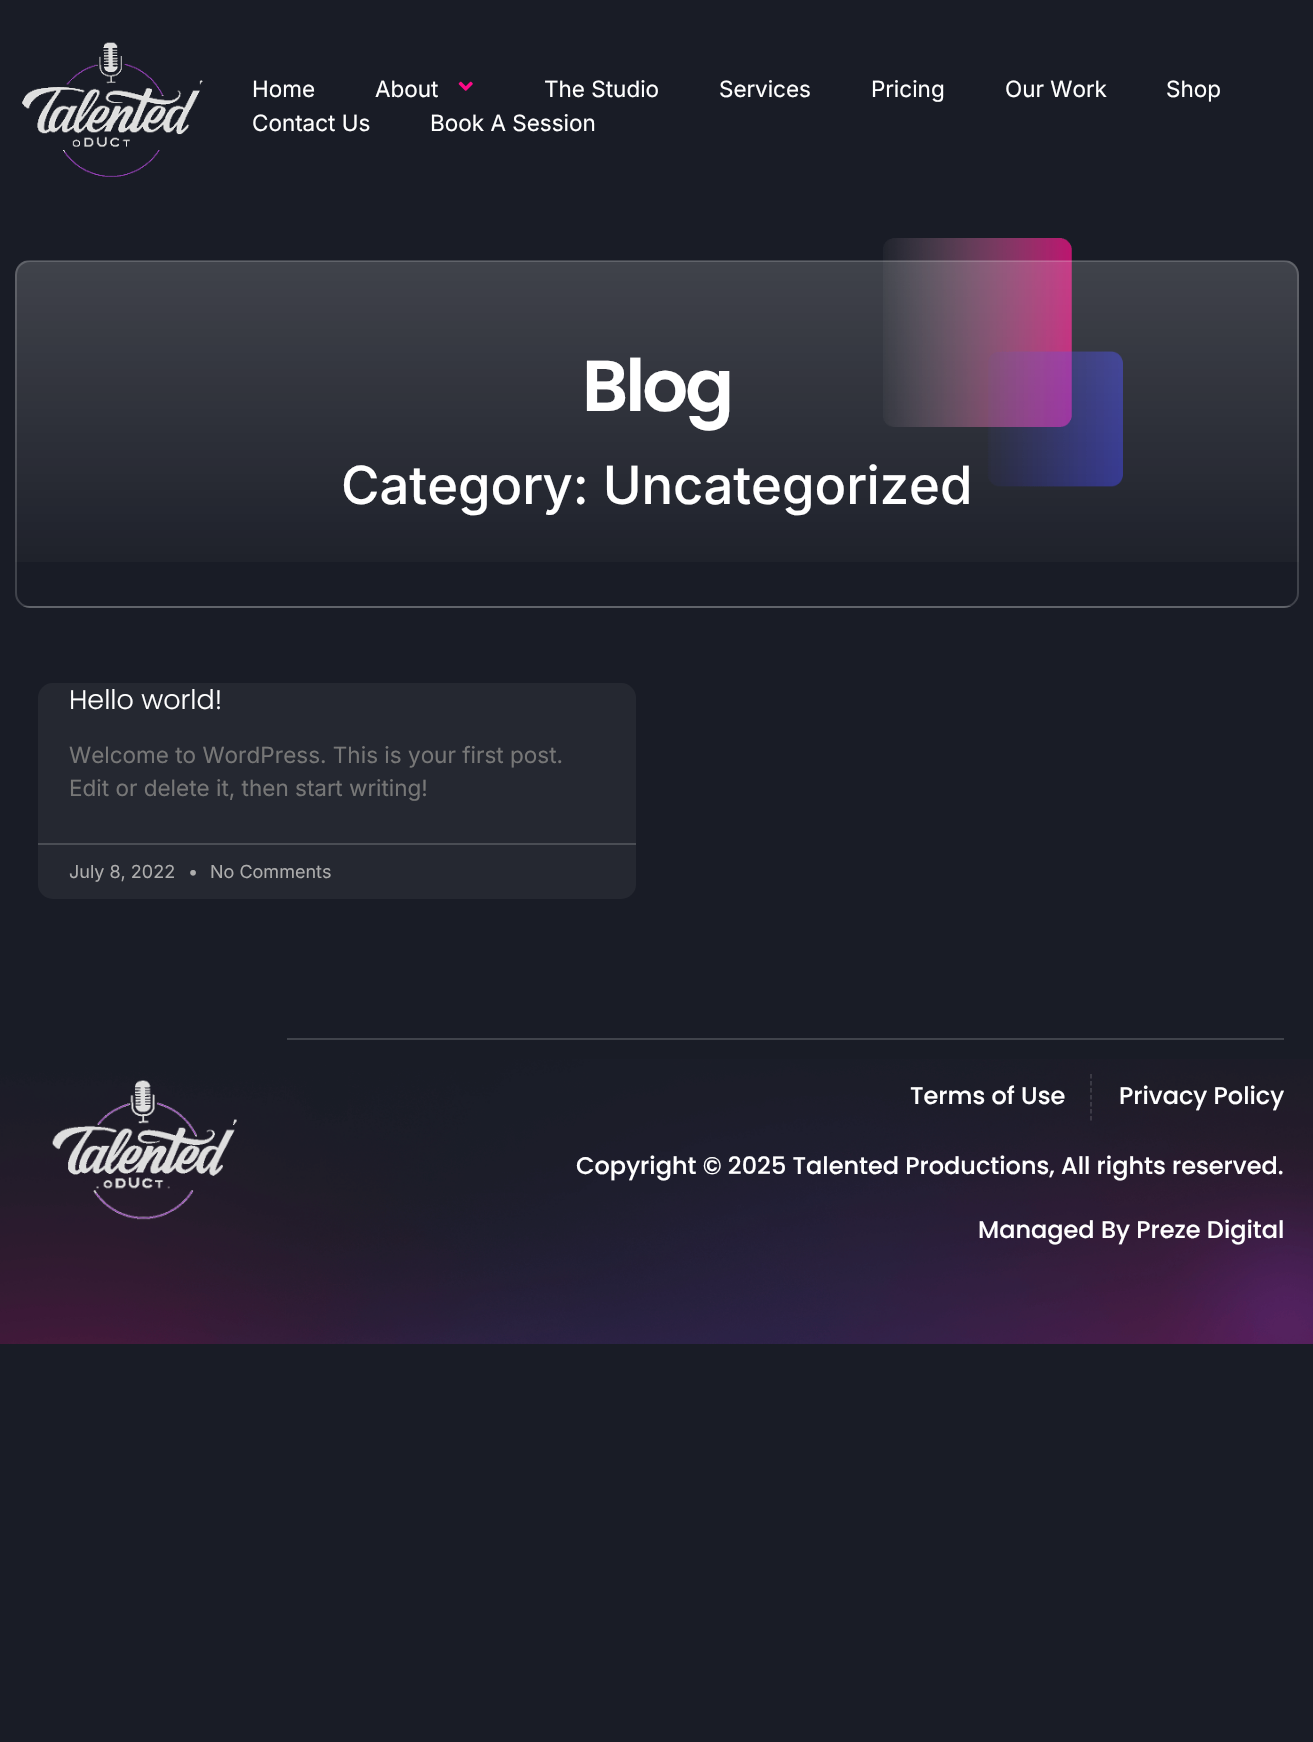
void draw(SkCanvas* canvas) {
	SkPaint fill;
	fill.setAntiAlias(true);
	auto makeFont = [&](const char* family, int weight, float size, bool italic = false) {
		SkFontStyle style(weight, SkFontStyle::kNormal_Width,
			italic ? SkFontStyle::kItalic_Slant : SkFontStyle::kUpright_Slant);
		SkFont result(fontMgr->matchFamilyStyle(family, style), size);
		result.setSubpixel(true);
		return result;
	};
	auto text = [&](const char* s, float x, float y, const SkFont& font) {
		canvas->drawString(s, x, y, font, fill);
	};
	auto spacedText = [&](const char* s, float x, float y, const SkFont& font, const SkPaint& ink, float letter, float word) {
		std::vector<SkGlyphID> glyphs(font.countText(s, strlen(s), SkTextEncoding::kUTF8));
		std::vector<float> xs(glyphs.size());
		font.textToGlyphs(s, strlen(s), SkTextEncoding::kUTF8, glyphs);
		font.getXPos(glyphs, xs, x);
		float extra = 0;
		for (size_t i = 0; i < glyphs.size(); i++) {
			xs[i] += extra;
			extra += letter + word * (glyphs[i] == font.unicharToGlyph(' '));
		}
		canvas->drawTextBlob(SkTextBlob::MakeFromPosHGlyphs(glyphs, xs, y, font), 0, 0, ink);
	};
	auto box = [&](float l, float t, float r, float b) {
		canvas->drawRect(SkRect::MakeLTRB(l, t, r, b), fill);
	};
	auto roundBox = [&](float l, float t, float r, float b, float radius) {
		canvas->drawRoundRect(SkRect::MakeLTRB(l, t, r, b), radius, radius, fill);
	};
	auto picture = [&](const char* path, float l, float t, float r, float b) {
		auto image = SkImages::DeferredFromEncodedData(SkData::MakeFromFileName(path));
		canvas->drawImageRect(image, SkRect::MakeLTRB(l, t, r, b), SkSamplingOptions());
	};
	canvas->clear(0xFF191C26);
	picture("image0.png", 22, 42, 203, 177);
	picture("image1.png", 458, 81, 473, 91);
	picture("image2.png", 883, 238, 1123, 487);
	canvas->save();
	canvas->clipPath(SkPathBuilder().moveTo(30, 260).lineTo(1284, 260).cubicTo(1292.5f, 260, 1299, 266.5f, 1299, 275).lineTo(1299, 593).cubicTo(1299, 601.5f, 1292.5f, 608, 1284, 608).lineTo(30, 608).cubicTo(21.5f, 608, 15, 601.5f, 15, 593).lineTo(15, 275).cubicTo(15, 266.5f, 21.5f, 260, 30, 260).close().detach(), true);
	{
		const SkColor colors[] = {0x2BFFFFFF, 0x00FFFFFF};
		const float stops[] = {0, 1};
		const SkPoint ends[] = {{657, 261}, {657, 606}};
		fill.setShader(SkGradientShader::MakeLinear(ends, colors, stops, 2, SkTileMode::kClamp));
		fill.setAlpha(255);
	}
	box(15, 261, 1299, 562);
	{
		const SkColor colors[] = {0xFF40434B, 0xFF191C26};
		const float stops[] = {0, 1};
		const SkPoint ends[] = {{657, 606}, {657, 951}};
		fill.setShader(SkGradientShader::MakeLinear(ends, colors, stops, 2, SkTileMode::kClamp));
		fill.setAlpha(255);
	}
	box(15, 606, 1299, 608);
	canvas->restore();
	fill.setStyle(SkPaint::kStroke_Style);
	fill.setStrokeWidth(2);
	fill.setShader(nullptr);
	fill.setColor(0x2BFFFFFF);
	canvas->drawRoundRect(SkRect::MakeLTRB(16, 261, 1298, 607), 14, 14, fill);
	fill.setStyle(SkPaint::kFill_Style);
	fill.setColor(0xFF252831);
	roundBox(38, 683, 636, 899, 15);
	fill.setColor(0xFF4A4D54);
	box(38, 843, 636, 845);
	picture("image3.png", 0, 1059, 1313, 1344);
	picture("image4.png", 52, 1080, 237, 1220);
	fill.setColor(0xFF40434B);
	box(287, 1038, 1284, 1040);
	fill.setStyle(SkPaint::kStroke_Style);
	fill.setStrokeWidth(1.5f);
	fill.setColor(0x2BFFFFFF);
	fill.setPathEffect(SkDashPathEffect::Make({{4.5f, 2.5f}}, 0));
	canvas->drawPath(SkPathBuilder().moveTo(1091, 1074).lineTo(1091, 1120.5f).detach(), fill);
	fill.setPathEffect(nullptr);
	auto font1 = makeFont("Inter", 400, 22.5f);
	fill.setStyle(SkPaint::kFill_Style);
	fill.setColor(0xFFFFFFFF);
	text("Home", 252, 97, font1);
	text("About", 375, 97, font1);
	text("The Studio", 544, 97, font1);
	text("Services", 719, 97, font1);
	text("Pricing", 871, 97, font1);
	text("Our Work", 1005, 97, font1);
	text("Shop", 1166, 97, font1);
	text("Contact Us", 252, 131, font1);
	text("Book A Session", 430, 131, font1);
	auto font2 = makeFont("Poppins", 600, 72);
	spacedText("Blog", 582, 411, font2, fill, -3, 0);
	auto font3 = makeFont("Inter", 500, 52.5f);
	text("Category: Uncategorized", 341, 504, font3);
	auto font4 = makeFont("Poppins", 300, 27);
	text("Hello world!", 69, 709, font4);
	fill.setColor(0xFF777777);
	text("Welcome to WordPress. This is your first post.", 69, 763, font1);
	text("Edit or delete it, then start writing!", 69, 796, font1);
	auto font5 = makeFont("Inter", 400, 18);
	fill.setColor(0xFFADADAD);
	text("July 8, 2022", 69, 878, font5);
	text("•", 188, 878, font5);
	text("No Comments", 210, 878, font5);
	auto font6 = makeFont("Poppins", 500, 24);
	fill.setColor(0xFFFFFFFF);
	text("Terms of Use", 910, 1104, font6);
	text("Privacy Policy", 1119, 1104, font6);
	text("Copyright © 2025 Talented Productions, All rights reserved.", 576, 1174, font6);
	text("Managed By Preze Digital", 978, 1238, font6);
}
